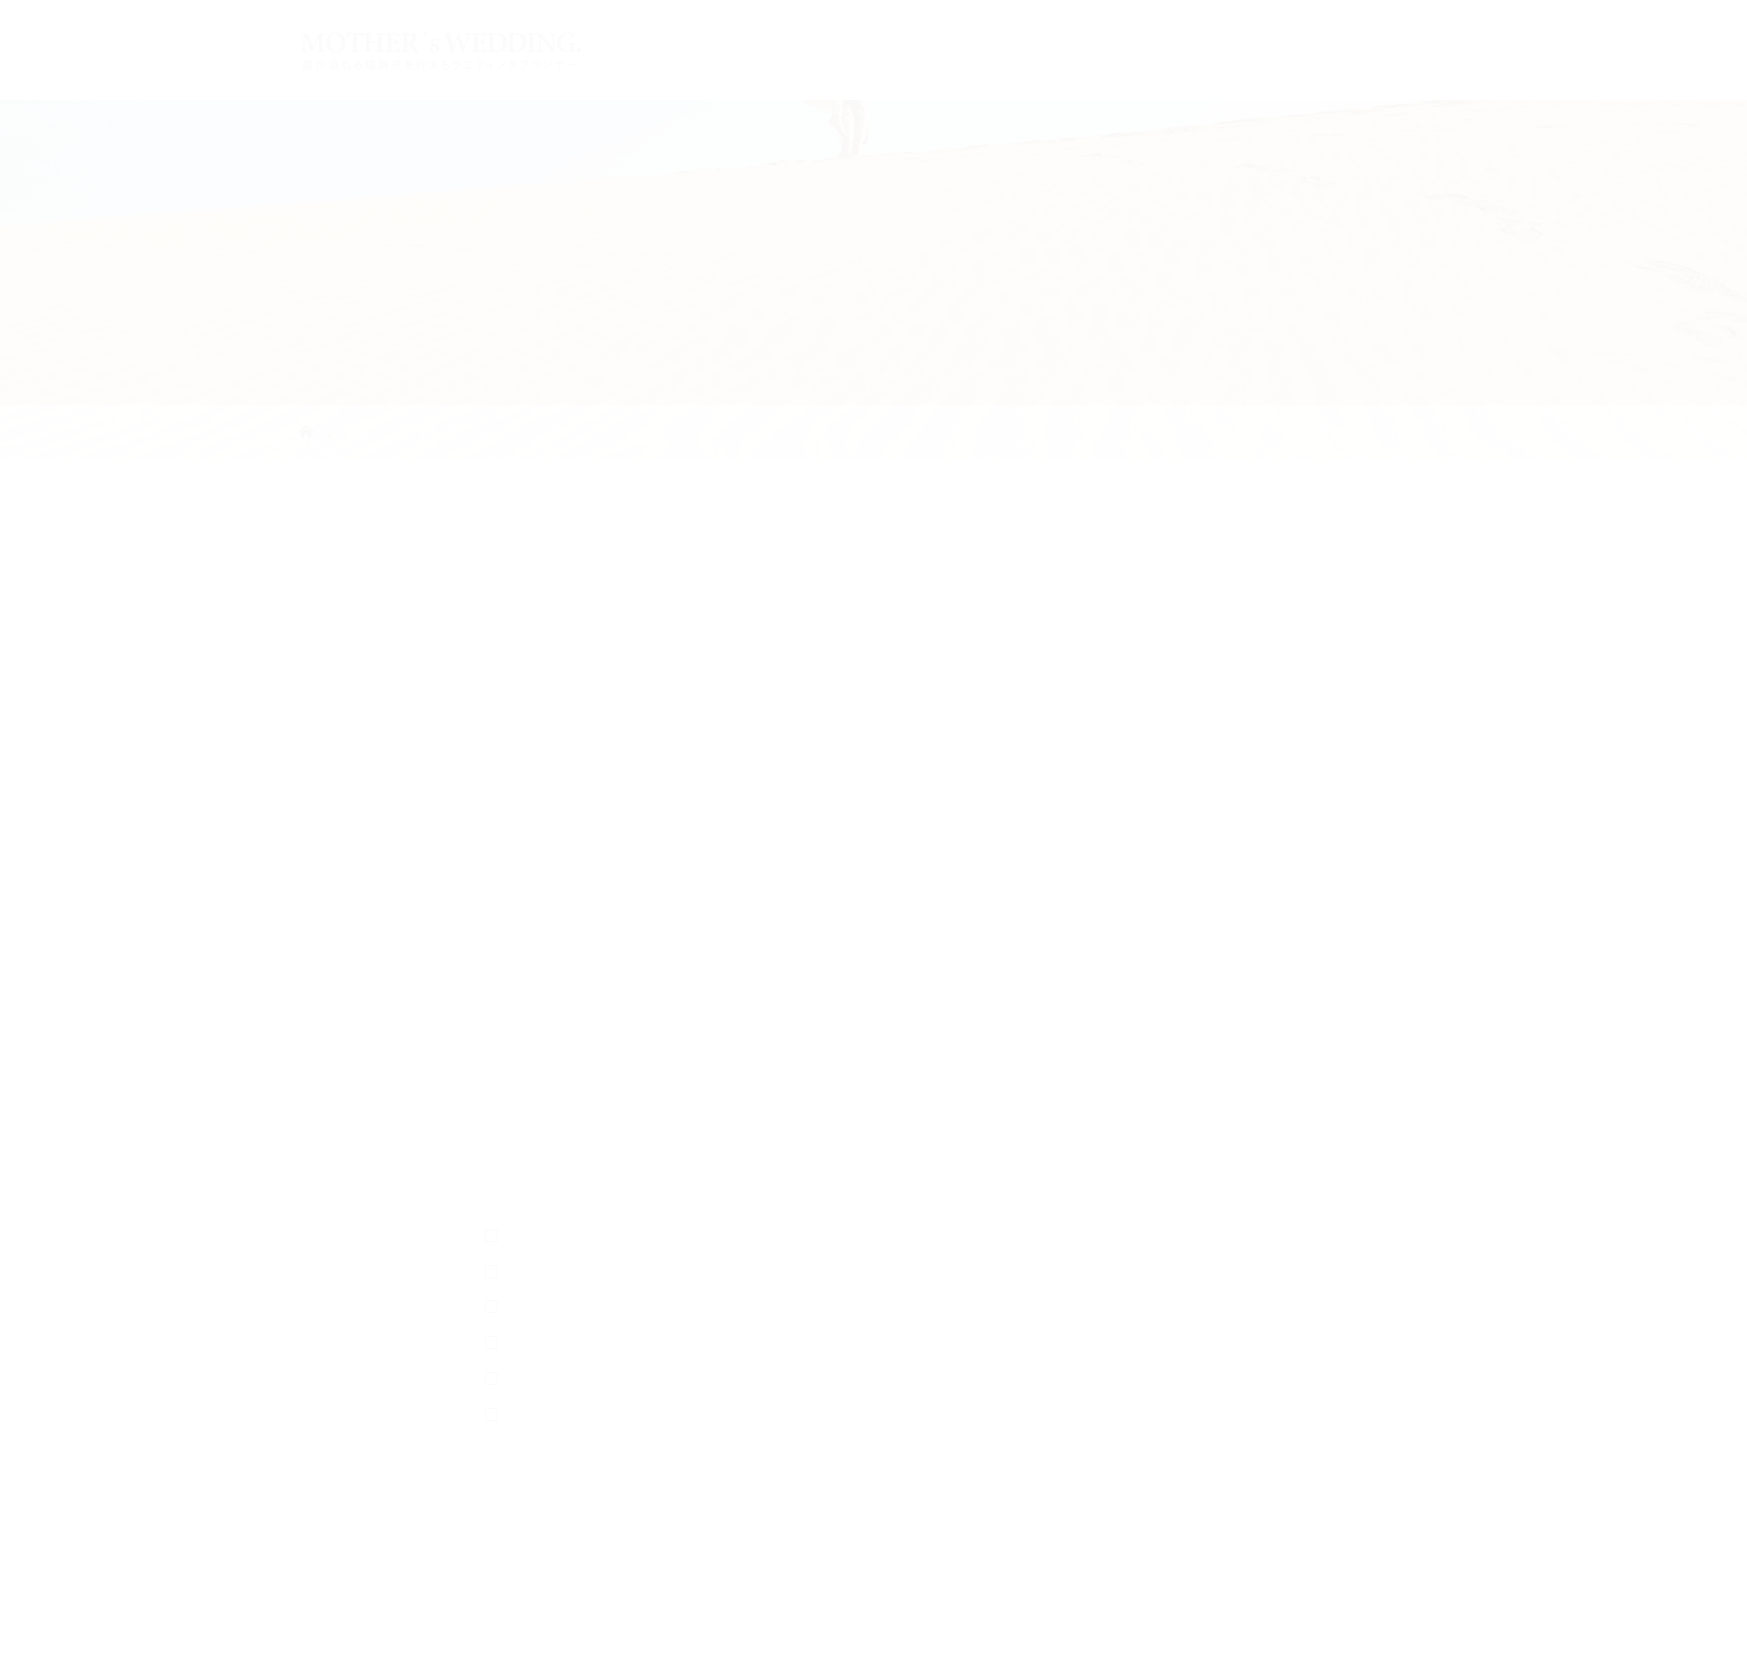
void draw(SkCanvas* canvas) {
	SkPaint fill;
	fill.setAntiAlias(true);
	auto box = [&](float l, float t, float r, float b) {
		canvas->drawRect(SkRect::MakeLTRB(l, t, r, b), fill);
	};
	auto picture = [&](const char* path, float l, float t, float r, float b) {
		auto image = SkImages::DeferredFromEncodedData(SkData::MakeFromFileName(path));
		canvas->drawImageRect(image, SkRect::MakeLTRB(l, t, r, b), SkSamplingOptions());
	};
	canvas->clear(0xFFFFFFFF);
	picture("image0.png", 300, 32, 581, 70);
	picture("image1.png", 0, 100, 1747, 460);
	fill.setColor(0xB3FFFFFF);
	box(0, 405, 1747, 460);
	picture("image2.png", 299, 425, 313, 438);
	picture("image3.png", 327, 430, 332, 438);
	picture("image4.png", 415, 430, 420, 438);
	fill.setStyle(SkPaint::kStroke_Style);
	fill.setStrokeWidth(1);
	fill.setColor(0xFFFBFBFB);
	canvas->drawRoundRect(SkRect::MakeLTRB(485.5f, 1229.5f, 497.5f, 1241.5f), 1.5f, 1.5f, fill);
	canvas->drawRoundRect(SkRect::MakeLTRB(485.5f, 1265.5f, 497.5f, 1277.5f), 1.5f, 1.5f, fill);
	canvas->drawRoundRect(SkRect::MakeLTRB(485.5f, 1300.5f, 497.5f, 1312.5f), 1.5f, 1.5f, fill);
	canvas->drawRoundRect(SkRect::MakeLTRB(485.5f, 1336.5f, 497.5f, 1348.5f), 1.5f, 1.5f, fill);
	canvas->drawRoundRect(SkRect::MakeLTRB(485.5f, 1372.5f, 497.5f, 1384.5f), 1.5f, 1.5f, fill);
	canvas->drawRoundRect(SkRect::MakeLTRB(485.5f, 1408.5f, 497.5f, 1420.5f), 1.5f, 1.5f, fill);
}
